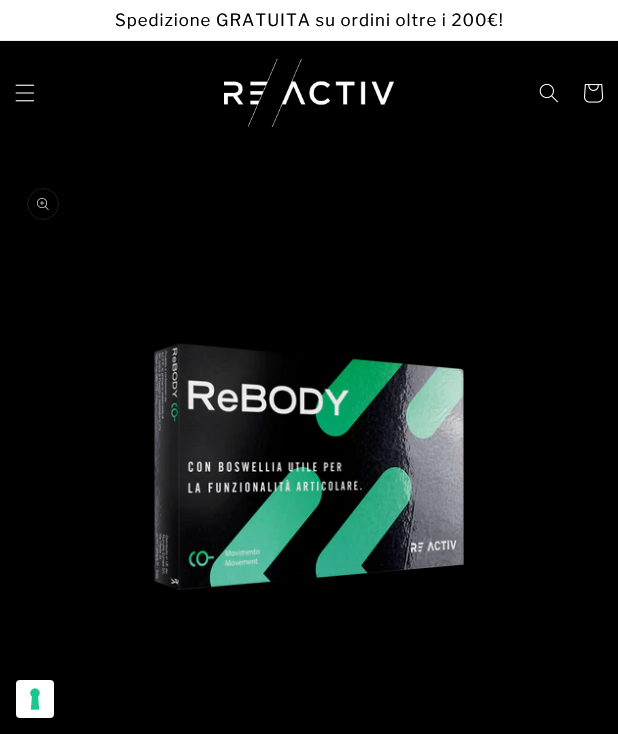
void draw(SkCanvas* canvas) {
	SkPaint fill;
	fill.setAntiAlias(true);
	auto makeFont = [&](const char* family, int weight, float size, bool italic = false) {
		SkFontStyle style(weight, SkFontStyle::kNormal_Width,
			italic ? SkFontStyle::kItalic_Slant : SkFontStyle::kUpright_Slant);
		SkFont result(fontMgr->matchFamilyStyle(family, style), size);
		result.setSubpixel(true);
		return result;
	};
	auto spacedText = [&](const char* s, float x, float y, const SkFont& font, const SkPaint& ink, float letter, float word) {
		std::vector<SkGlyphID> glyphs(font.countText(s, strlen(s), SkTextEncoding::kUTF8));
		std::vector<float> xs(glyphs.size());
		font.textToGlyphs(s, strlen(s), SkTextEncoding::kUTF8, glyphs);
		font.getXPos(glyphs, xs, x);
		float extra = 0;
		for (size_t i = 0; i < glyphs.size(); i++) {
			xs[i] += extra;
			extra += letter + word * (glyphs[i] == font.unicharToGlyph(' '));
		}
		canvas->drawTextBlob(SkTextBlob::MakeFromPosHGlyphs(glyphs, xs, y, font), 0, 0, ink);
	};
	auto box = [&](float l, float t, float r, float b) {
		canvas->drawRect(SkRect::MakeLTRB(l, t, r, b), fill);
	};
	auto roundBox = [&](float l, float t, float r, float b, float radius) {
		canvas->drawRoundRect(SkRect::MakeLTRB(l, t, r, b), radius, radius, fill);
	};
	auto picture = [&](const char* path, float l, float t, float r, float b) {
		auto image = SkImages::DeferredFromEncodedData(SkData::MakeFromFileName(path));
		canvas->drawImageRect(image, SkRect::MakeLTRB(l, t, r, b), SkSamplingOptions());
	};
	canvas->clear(0xFF000000);
	fill.setColor(0xFFFFFFFF);
	box(0, 0, 618, 40);
	fill.setColor(0xFFEBEBEB);
	box(0, 40, 618, 41);
	picture("image0.png", 15, 84, 35, 102);
	picture("image1.png", 224, 59, 394, 127);
	picture("image2.png", 539, 83, 558, 103);
	picture("image3.png", 584, 84, 604, 103);
	fill.setStyle(SkPaint::kStroke_Style);
	fill.setStrokeWidth(1);
	fill.setColor(0xFF1A1A1A);
	canvas->drawCircle(43, 204, 15.5f, fill);
	picture("image4.png", 37, 198, 49, 210);
	picture("image5.png", 154, 343, 464, 591);
	fill.setStyle(SkPaint::kFill_Style);
	fill.setColor(0xFFFFFFFF);
	roundBox(16, 680, 54, 718, 4);
	picture("image6.png", 30, 688, 40, 710);
	auto font1 = makeFont("Libre Franklin", 400, 16.8f);
	fill.setColor(0xFF000000);
	spacedText("Spedizione GRATUITA su ordini oltre i 200€!", 115, 26, font1, fill, 1, 0);
}
